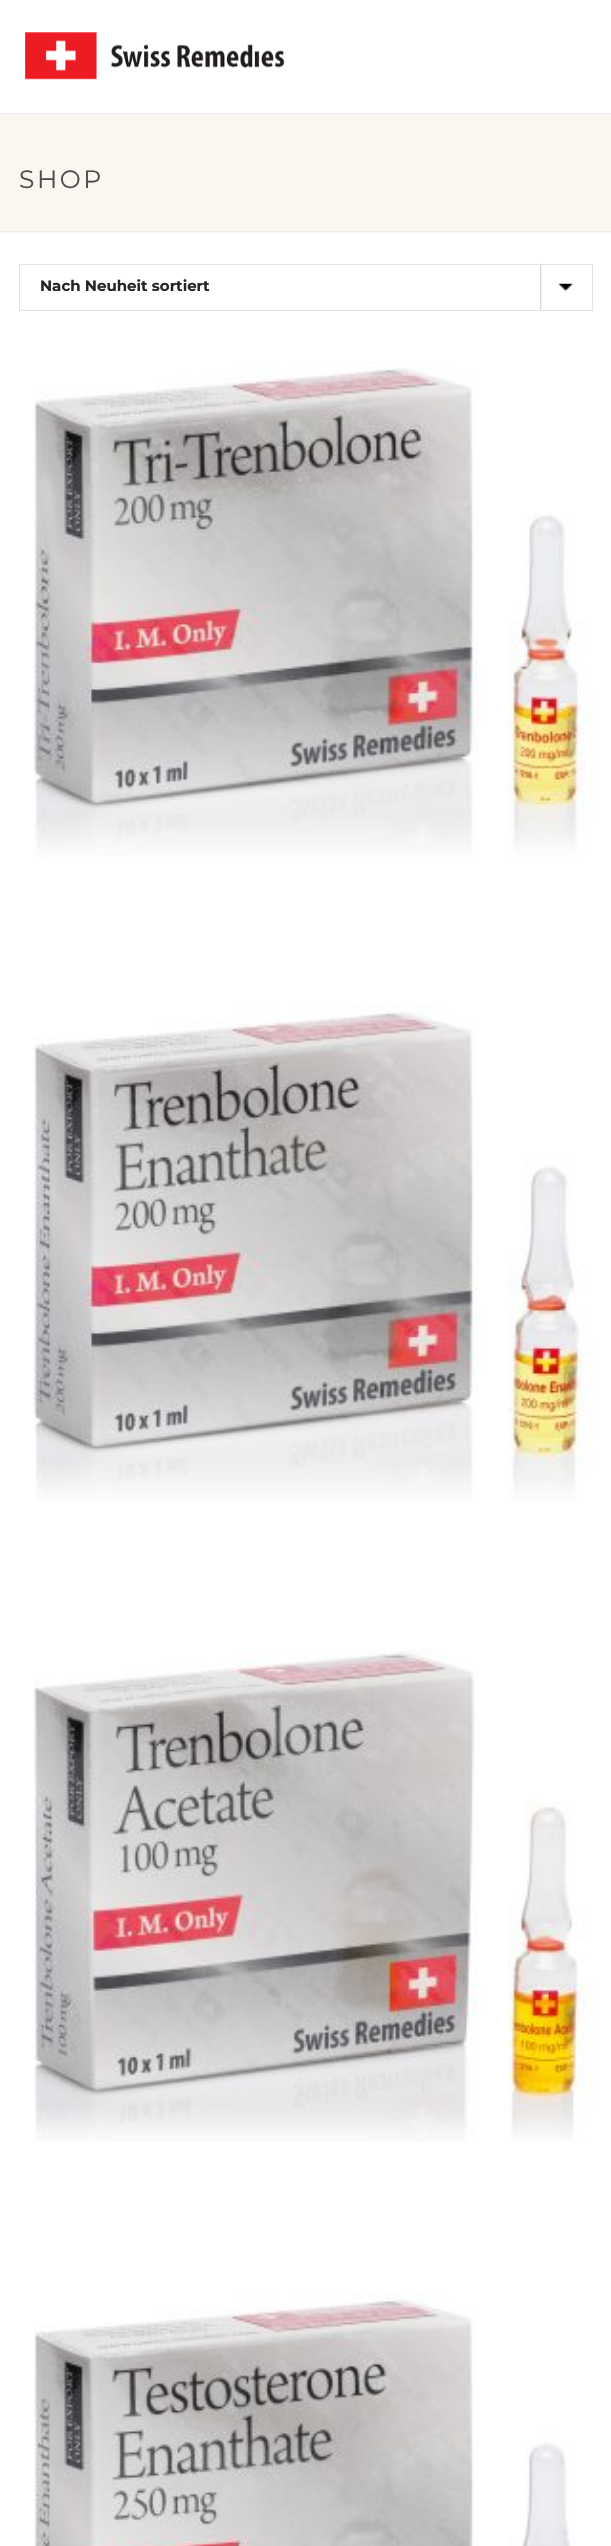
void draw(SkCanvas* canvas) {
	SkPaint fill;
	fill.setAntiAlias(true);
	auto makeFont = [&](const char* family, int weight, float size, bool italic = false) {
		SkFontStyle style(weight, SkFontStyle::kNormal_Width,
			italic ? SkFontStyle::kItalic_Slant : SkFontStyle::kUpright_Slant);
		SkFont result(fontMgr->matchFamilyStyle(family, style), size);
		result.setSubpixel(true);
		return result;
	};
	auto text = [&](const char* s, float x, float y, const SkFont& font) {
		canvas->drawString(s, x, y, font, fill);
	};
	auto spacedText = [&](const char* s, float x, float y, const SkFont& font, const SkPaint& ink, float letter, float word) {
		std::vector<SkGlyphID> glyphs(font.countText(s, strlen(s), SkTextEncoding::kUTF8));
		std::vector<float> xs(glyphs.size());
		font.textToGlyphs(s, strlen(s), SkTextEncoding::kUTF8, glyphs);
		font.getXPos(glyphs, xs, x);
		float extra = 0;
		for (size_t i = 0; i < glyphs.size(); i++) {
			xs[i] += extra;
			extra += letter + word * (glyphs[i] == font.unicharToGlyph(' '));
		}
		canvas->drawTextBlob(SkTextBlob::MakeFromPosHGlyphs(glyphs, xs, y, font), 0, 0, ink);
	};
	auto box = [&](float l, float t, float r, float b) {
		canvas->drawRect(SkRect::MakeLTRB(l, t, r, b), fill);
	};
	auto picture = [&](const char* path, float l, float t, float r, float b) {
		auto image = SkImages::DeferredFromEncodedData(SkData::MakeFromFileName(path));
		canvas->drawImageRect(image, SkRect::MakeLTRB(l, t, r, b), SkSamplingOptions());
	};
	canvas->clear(0xFFFFFFFF);
	fill.setColor(0xFFFBF7F0);
	box(0, 114, 611, 233);
	fill.setColor(0xFFEDEDED);
	box(0, 231, 611, 232);
	box(0, 113, 611, 114);
	picture("image0.png", 25, 32, 285, 80);
	picture("image1.png", 540, 263, 573, 312);
	fill.setStyle(SkPaint::kStroke_Style);
	fill.setStrokeWidth(1);
	fill.setColor(0xFFE3E3E3);
	canvas->drawRect(SkRect::MakeLTRB(19.5f, 264.5f, 592.5f, 310.5f), fill);
	picture("image2.png", 33, 361, 593, 857);
	picture("image3.png", 33, 1005, 593, 1501);
	picture("image4.png", 33, 1648, 593, 2142);
	picture("image5.png", 34, 2292, 571, 2546);
	auto font1 = makeFont("Montserrat", 400, 25);
	fill.setStyle(SkPaint::kFill_Style);
	fill.setColor(0xFF4D4D4D);
	spacedText("SHOP", 19, 188, font1, fill, 2.5f, 0);
	auto font2 = makeFont("Montserrat", 700, 15);
	fill.setColor(0xFF252525);
	text("Nach Neuheit sortiert", 40, 291, font2);
}
